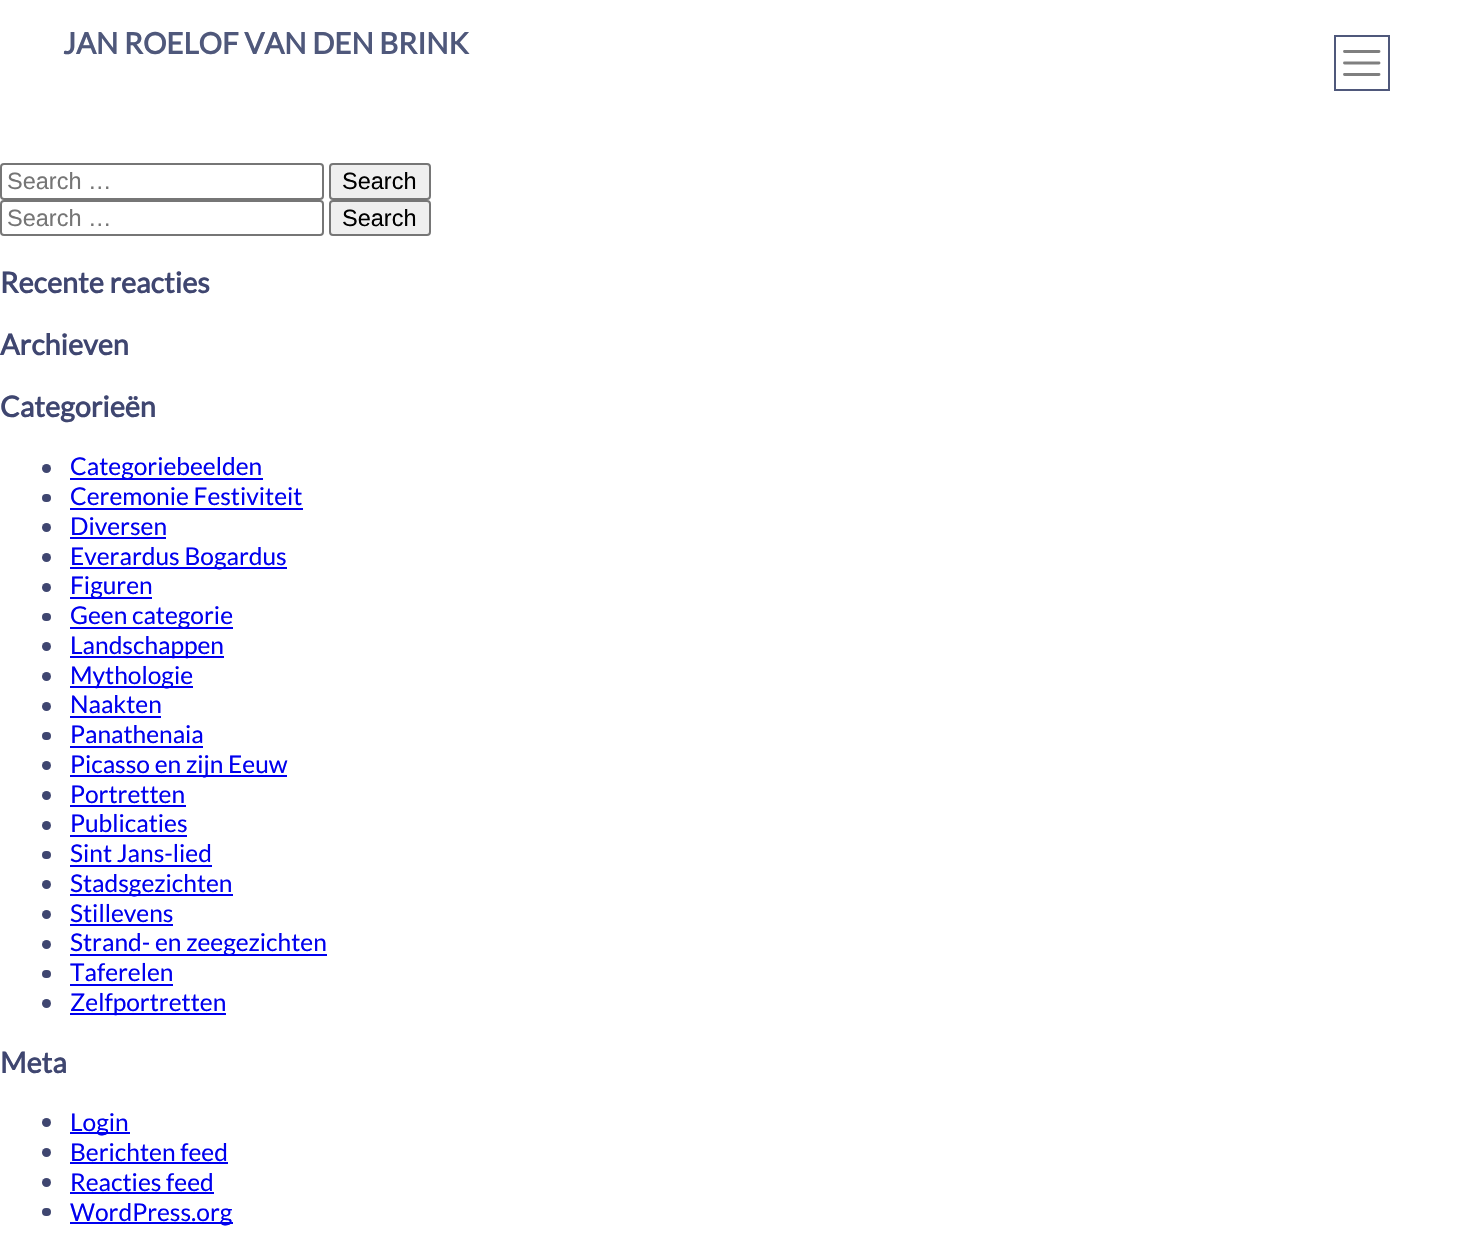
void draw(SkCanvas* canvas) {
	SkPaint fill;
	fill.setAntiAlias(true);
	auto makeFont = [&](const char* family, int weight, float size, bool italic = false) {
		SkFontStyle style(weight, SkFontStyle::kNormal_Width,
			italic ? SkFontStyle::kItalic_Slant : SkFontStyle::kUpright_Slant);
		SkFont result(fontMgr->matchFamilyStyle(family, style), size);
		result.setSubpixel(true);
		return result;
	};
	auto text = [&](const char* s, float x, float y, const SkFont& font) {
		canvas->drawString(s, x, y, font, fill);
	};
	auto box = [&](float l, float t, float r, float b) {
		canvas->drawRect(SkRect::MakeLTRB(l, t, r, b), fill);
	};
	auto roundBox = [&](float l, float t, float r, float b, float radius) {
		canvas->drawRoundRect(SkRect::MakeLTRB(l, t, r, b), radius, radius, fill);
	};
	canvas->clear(0xFFFFFFFF);
	fill.setStyle(SkPaint::kStroke_Style);
	fill.setStrokeWidth(2);
	fill.setColor(0xFF4F587B);
	canvas->drawRect(SkRect::MakeLTRB(1335, 36, 1389, 90), fill);
	fill.setStrokeWidth(2.9f);
	fill.setStrokeCap(SkPaint::kRound_Cap);
	fill.setColor(0xFF7F7F7F);
	canvas->drawPath(SkPathBuilder().moveTo(1344.5f, 51.5f).lineTo(1379, 51.5f).moveTo(1344.5f, 63).lineTo(1379, 63).moveTo(1344.5f, 74.5f).lineTo(1379, 74.5f).detach(), fill);
	fill.setStrokeWidth(2);
	fill.setStrokeCap(SkPaint::kButt_Cap);
	fill.setColor(0xFF767676);
	canvas->drawRoundRect(SkRect::MakeLTRB(1, 164, 323, 199), 3, 3, fill);
	fill.setStyle(SkPaint::kFill_Style);
	fill.setColor(0xFFEFEFEF);
	canvas->drawRoundRect(SkRect::MakeLTRB(330, 164, 430, 199), 3, 3, fill);
	fill.setStyle(SkPaint::kStroke_Style);
	fill.setColor(0xFF767676);
	canvas->drawRoundRect(SkRect::MakeLTRB(330, 164, 430, 199), 3, 3, fill);
	canvas->drawRoundRect(SkRect::MakeLTRB(1, 201, 323, 235), 3, 3, fill);
	fill.setStyle(SkPaint::kFill_Style);
	fill.setColor(0xFFEFEFEF);
	canvas->drawRoundRect(SkRect::MakeLTRB(330, 201, 430, 235), 3, 3, fill);
	fill.setStyle(SkPaint::kStroke_Style);
	fill.setColor(0xFF767676);
	canvas->drawRoundRect(SkRect::MakeLTRB(330, 201, 430, 235), 3, 3, fill);
	fill.setStyle(SkPaint::kFill_Style);
	fill.setColor(0xFF3F4670);
	canvas->drawCircle(46.5f, 468.5f, 4.5f, fill);
	fill.setColor(0xFF0000EE);
	box(70, 478, 263, 480);
	fill.setColor(0xFF3F4670);
	roundBox(42, 494, 51, 502, 4);
	fill.setColor(0xFF0000EE);
	box(70, 508, 303, 510);
	fill.setColor(0xFF3F4670);
	canvas->drawCircle(46.5f, 527.5f, 4.5f, fill);
	fill.setColor(0xFF0000EE);
	box(70, 537, 166, 539);
	fill.setColor(0xFF3F4670);
	canvas->drawCircle(46.5f, 557.5f, 4.5f, fill);
	fill.setColor(0xFF0000EE);
	box(70, 567, 287, 569);
	fill.setColor(0xFF3F4670);
	canvas->drawCircle(46.5f, 587.5f, 4.5f, fill);
	fill.setColor(0xFF0000EE);
	box(70, 597, 152, 599);
	fill.setColor(0xFF3F4670);
	roundBox(42, 613, 51, 621, 4);
	fill.setColor(0xFF0000EE);
	box(70, 627, 233, 629);
	fill.setColor(0xFF3F4670);
	canvas->drawCircle(46.5f, 646.5f, 4.5f, fill);
	fill.setColor(0xFF0000EE);
	box(70, 656, 224, 658);
	fill.setColor(0xFF3F4670);
	canvas->drawCircle(46.5f, 676.5f, 4.5f, fill);
	fill.setColor(0xFF0000EE);
	box(70, 686, 193, 688);
	fill.setColor(0xFF3F4670);
	canvas->drawCircle(46.5f, 706.5f, 4.5f, fill);
	fill.setColor(0xFF0000EE);
	box(70, 716, 161, 718);
	fill.setColor(0xFF3F4670);
	roundBox(42, 732, 51, 740, 4);
	fill.setColor(0xFF0000EE);
	box(70, 746, 203, 748);
	fill.setColor(0xFF3F4670);
	canvas->drawCircle(46.5f, 765.5f, 4.5f, fill);
	fill.setColor(0xFF0000EE);
	box(70, 775, 287, 777);
	fill.setColor(0xFF3F4670);
	canvas->drawCircle(46.5f, 795.5f, 4.5f, fill);
	fill.setColor(0xFF0000EE);
	box(70, 805, 186, 807);
	fill.setColor(0xFF3F4670);
	canvas->drawCircle(46.5f, 825.5f, 4.5f, fill);
	fill.setColor(0xFF0000EE);
	box(70, 835, 187, 837);
	fill.setColor(0xFF3F4670);
	roundBox(42, 851, 51, 859, 4);
	fill.setColor(0xFF0000EE);
	box(70, 865, 212, 867);
	fill.setColor(0xFF3F4670);
	canvas->drawCircle(46.5f, 884.5f, 4.5f, fill);
	fill.setColor(0xFF0000EE);
	box(70, 894, 233, 896);
	fill.setColor(0xFF3F4670);
	canvas->drawCircle(46.5f, 914.5f, 4.5f, fill);
	fill.setColor(0xFF0000EE);
	box(70, 924, 173, 926);
	fill.setColor(0xFF3F4670);
	canvas->drawCircle(46.5f, 944.5f, 4.5f, fill);
	fill.setColor(0xFF0000EE);
	box(70, 954, 327, 956);
	fill.setColor(0xFF3F4670);
	roundBox(42, 970, 51, 978, 4);
	fill.setColor(0xFF0000EE);
	box(70, 984, 173, 986);
	fill.setColor(0xFF3F4670);
	canvas->drawCircle(46.5f, 1003.5f, 4.5f, fill);
	fill.setColor(0xFF0000EE);
	box(70, 1013, 226, 1015);
	fill.setColor(0xFF3F4670);
	canvas->drawCircle(46.5f, 1122.5f, 4.5f, fill);
	fill.setColor(0xFF0000EE);
	box(70, 1132, 130, 1134);
	fill.setColor(0xFF3F4670);
	canvas->drawCircle(46.5f, 1152.5f, 4.5f, fill);
	fill.setColor(0xFF0000EE);
	box(70, 1162, 228, 1164);
	fill.setColor(0xFF3F4670);
	canvas->drawCircle(46.5f, 1182.5f, 4.5f, fill);
	fill.setColor(0xFF0000EE);
	box(70, 1192, 214, 1194);
	fill.setColor(0xFF3F4670);
	roundBox(42, 1208, 51, 1216, 4);
	fill.setColor(0xFF0000EE);
	box(70, 1222, 233, 1224);
	auto font1 = makeFont("Lato", 700, 29.4f);
	fill.setColor(0xFF4F587B);
	text("JAN ROELOF VAN DEN BRINK", 63, 54, font1);
	auto font2 = makeFont("Liberation Sans", 400, 23.5f);
	fill.setColor(0xFF757575);
	text("Search …", 7, 189, font2);
	fill.setColor(0xFF000000);
	text("Search", 342, 189, font2);
	fill.setColor(0xFF757575);
	text("Search …", 7, 226, font2);
	fill.setColor(0xFF000000);
	text("Search", 342, 226, font2);
	auto font3 = makeFont("Lato", 700, 28.75f);
	fill.setColor(0xFF3F4670);
	text("Recente reacties", 0, 293, font3);
	text("Archieven", 0, 355, font3);
	text("Categorieën", 0, 417, font3);
	auto font4 = makeFont("Lato", 400, 24.5f);
	fill.setColor(0xFF0000EE);
	text("Categoriebeelden", 70, 475, font4);
	text("Ceremonie Festiviteit", 70, 505, font4);
	text("Diversen", 70, 535, font4);
	text("Everardus Bogardus", 70, 565, font4);
	text("Figuren", 70, 594, font4);
	text("Geen categorie", 70, 624, font4);
	text("Landschappen", 70, 654, font4);
	text("Mythologie", 70, 684, font4);
	text("Naakten", 70, 713, font4);
	text("Panathenaia", 70, 743, font4);
	text("Picasso en zijn Eeuw", 70, 773, font4);
	text("Portretten", 70, 803, font4);
	text("Publicaties", 70, 832, font4);
	text("Sint Jans-lied", 70, 862, font4);
	text("Stadsgezichten", 70, 892, font4);
	text("Stillevens", 70, 922, font4);
	text("Strand- en zeegezichten", 70, 951, font4);
	text("Taferelen", 70, 981, font4);
	text("Zelfportretten", 70, 1011, font4);
	fill.setColor(0xFF3F4670);
	text("Meta", 0, 1073, font3);
	fill.setColor(0xFF0000EE);
	text("Login", 70, 1131, font4);
	text("Berichten feed", 70, 1161, font4);
	text("Reacties feed", 70, 1191, font4);
	text("WordPress.org", 70, 1221, font4);
}
